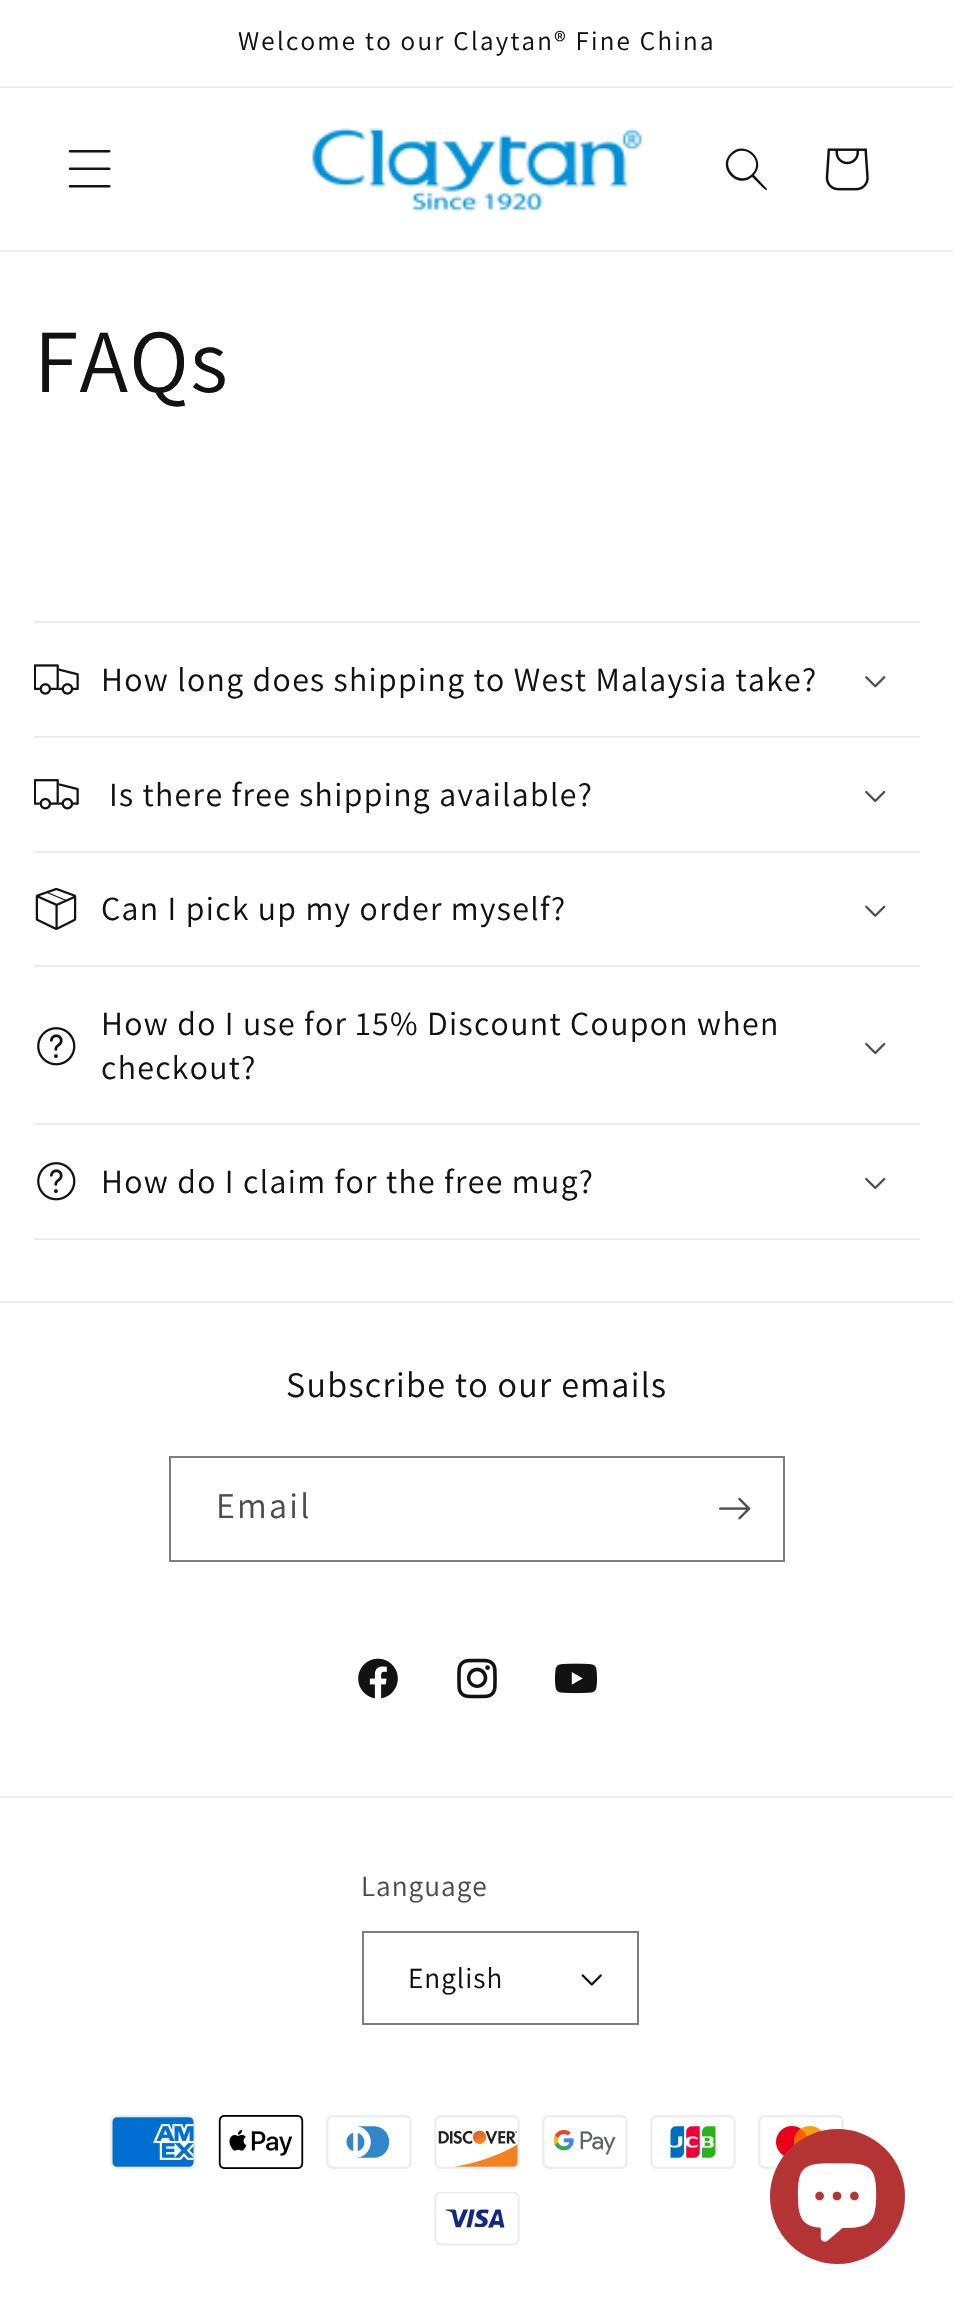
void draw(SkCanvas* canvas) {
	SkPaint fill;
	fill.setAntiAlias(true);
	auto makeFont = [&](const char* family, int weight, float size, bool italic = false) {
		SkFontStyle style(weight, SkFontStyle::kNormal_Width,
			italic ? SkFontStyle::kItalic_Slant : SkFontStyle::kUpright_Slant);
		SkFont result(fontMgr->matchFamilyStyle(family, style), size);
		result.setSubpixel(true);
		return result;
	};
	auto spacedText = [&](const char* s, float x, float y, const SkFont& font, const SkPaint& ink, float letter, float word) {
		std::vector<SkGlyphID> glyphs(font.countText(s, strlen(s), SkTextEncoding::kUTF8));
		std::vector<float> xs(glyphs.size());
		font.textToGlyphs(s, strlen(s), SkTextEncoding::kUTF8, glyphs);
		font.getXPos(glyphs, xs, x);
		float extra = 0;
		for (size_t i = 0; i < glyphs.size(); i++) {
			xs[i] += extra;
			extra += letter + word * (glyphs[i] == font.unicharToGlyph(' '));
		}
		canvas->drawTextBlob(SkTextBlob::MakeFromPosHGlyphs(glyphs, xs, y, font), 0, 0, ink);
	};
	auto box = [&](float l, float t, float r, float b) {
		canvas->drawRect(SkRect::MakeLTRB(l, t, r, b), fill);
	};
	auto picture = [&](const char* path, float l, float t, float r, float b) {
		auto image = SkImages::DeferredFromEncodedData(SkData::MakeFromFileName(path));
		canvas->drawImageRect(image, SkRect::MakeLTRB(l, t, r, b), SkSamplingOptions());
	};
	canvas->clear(0xFFFFFFFF);
	fill.setColor(0xFFECECEC);
	box(0, 86, 953, 88);
	box(0, 250, 953, 252);
	picture("image0.png", 68, 150, 111, 188);
	picture("image1.png", 312, 128, 642, 212);
	fill.setColor(0xFF121212);
	canvas->drawPath(SkPathBuilder(SkPathFillType::kEvenOdd).moveTo(752, 174).cubicTo(739, 187, 720, 167, 732, 155).cubicTo(745, 142, 765, 161, 752, 174).close().moveTo(752, 177).cubicTo(737, 190, 716, 167, 731, 153).cubicTo(745, 139, 768, 160, 754, 175).lineTo(767, 189).lineTo(767, 190).cubicTo(765, 191, 754, 178, 752, 177).close().detach(), fill);
	picture("image2.png", 825, 148, 869, 191);
	fill.setColor(0xFFECECEC);
	box(34, 621, 920, 623);
	box(34, 736, 920, 738);
	picture("image3.png", 34, 664, 79, 695);
	picture("image4.png", 865, 676, 886, 688);
	box(34, 851, 920, 853);
	picture("image5.png", 34, 779, 79, 810);
	picture("image6.png", 865, 790, 886, 803);
	box(34, 965, 920, 967);
	picture("image7.png", 35, 887, 77, 930);
	picture("image8.png", 865, 905, 886, 917);
	box(34, 1123, 920, 1125);
	picture("image9.png", 37, 1027, 76, 1066);
	picture("image6.png", 865, 1042, 886, 1055);
	box(34, 1238, 920, 1240);
	picture("image9.png", 37, 1162, 76, 1201);
	picture("image6.png", 865, 1177, 886, 1190);
	box(0, 1301, 953, 1303);
	fill.setStyle(SkPaint::kStroke_Style);
	fill.setStrokeWidth(2);
	fill.setColor(0xFF7D7D7D);
	canvas->drawRect(SkRect::MakeLTRB(170, 1457, 784, 1561), fill);
	picture("image10.png", 719, 1497, 751, 1520);
	picture("image11.png", 358, 1658, 398, 1699);
	picture("image12.png", 457, 1658, 497, 1699);
	picture("image13.png", 554, 1663, 598, 1694);
	fill.setStyle(SkPaint::kFill_Style);
	fill.setColor(0xFFECECEC);
	box(0, 1796, 953, 1798);
	picture("image14.png", 581, 1974, 602, 1986);
	fill.setStyle(SkPaint::kStroke_Style);
	fill.setColor(0xFF7D7D7D);
	canvas->drawRect(SkRect::MakeLTRB(363, 1932, 638, 2024), fill);
	picture("image15.png", 110, 2115, 196, 2169);
	picture("image16.png", 218, 2115, 304, 2169);
	picture("image17.png", 326, 2115, 412, 2169);
	picture("image18.png", 434, 2115, 520, 2169);
	picture("image19.png", 542, 2115, 628, 2169);
	picture("image20.png", 650, 2115, 736, 2169);
	picture("image21.png", 758, 2115, 844, 2169);
	picture("image22.png", 434, 2192, 520, 2246);
	fill.setStyle(SkPaint::kFill_Style);
	fill.setColor(0xFFB43333);
	canvas->drawCircle(837.5f, 2196.5f, 67.5f, fill);
	picture("image23.png", 797, 2163, 877, 2242);
	auto font1 = makeFont("Assistant", 400, 27);
	fill.setColor(0xFF121212);
	spacedText("Welcome to our Claytan® Fine China", 238, 50, font1, fill, 2.25f, 0);
	auto font2 = makeFont("Assistant", 400, 90);
	spacedText("FAQs", 34, 392, font2, fill, 1.35f, 0);
	auto font3 = makeFont("Assistant", 400, 33.75f);
	spacedText("How long does shipping to West Malaysia take?", 101, 691, font3, fill, 1.35f, 0);
	spacedText("Is there free shipping available?", 109, 806, font3, fill, 1.35f, 0);
	spacedText("Can I pick up my order myself?", 101, 920, font3, fill, 1.35f, 0);
	spacedText("How do I use for 15% Discount Coupon when", 101, 1035, font3, fill, 1.35f, 0);
	spacedText("checkout?", 101, 1079, font3, fill, 1.35f, 0);
	spacedText("How do I claim for the free mug?", 101, 1193, font3, fill, 1.35f, 0);
	auto font4 = makeFont("Assistant", 400, 36);
	spacedText("Subscribe to our emails", 286, 1397, font4, fill, 1.35f, 0);
	fill.setColor(0xFF4D4D4D);
	spacedText("Email", 216, 1518, font4, fill, 2.25f, 0);
	auto font5 = makeFont("Assistant", 400, 29.25f);
	spacedText("Language", 361, 1896, font5, fill, 1, 0);
	fill.setColor(0xFF121212);
	spacedText("English", 408, 1988, font5, fill, 1, 0);
}
